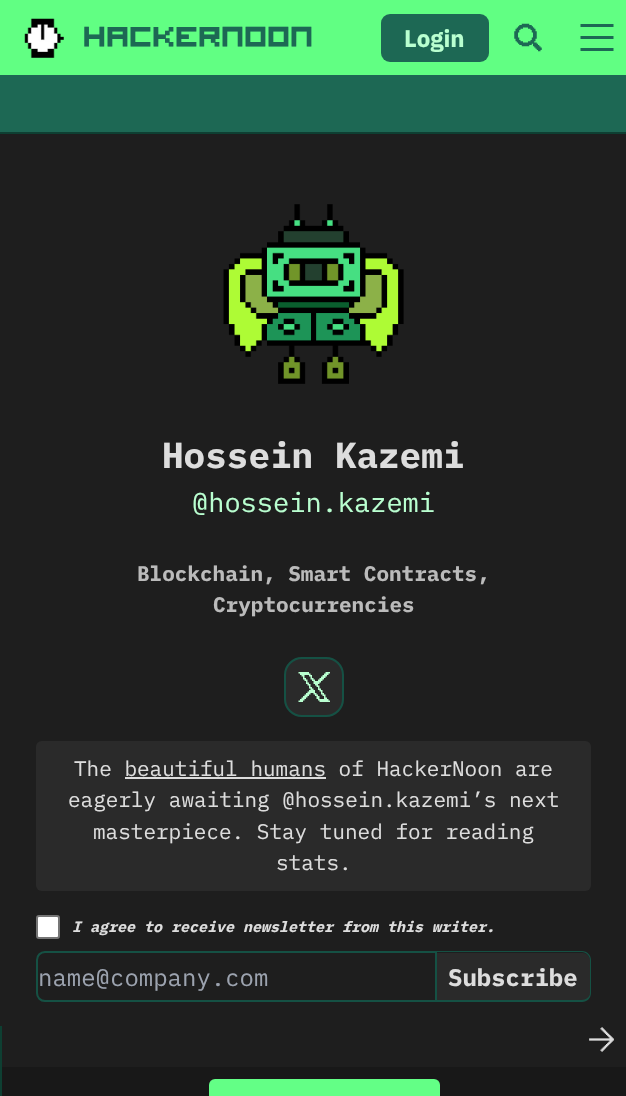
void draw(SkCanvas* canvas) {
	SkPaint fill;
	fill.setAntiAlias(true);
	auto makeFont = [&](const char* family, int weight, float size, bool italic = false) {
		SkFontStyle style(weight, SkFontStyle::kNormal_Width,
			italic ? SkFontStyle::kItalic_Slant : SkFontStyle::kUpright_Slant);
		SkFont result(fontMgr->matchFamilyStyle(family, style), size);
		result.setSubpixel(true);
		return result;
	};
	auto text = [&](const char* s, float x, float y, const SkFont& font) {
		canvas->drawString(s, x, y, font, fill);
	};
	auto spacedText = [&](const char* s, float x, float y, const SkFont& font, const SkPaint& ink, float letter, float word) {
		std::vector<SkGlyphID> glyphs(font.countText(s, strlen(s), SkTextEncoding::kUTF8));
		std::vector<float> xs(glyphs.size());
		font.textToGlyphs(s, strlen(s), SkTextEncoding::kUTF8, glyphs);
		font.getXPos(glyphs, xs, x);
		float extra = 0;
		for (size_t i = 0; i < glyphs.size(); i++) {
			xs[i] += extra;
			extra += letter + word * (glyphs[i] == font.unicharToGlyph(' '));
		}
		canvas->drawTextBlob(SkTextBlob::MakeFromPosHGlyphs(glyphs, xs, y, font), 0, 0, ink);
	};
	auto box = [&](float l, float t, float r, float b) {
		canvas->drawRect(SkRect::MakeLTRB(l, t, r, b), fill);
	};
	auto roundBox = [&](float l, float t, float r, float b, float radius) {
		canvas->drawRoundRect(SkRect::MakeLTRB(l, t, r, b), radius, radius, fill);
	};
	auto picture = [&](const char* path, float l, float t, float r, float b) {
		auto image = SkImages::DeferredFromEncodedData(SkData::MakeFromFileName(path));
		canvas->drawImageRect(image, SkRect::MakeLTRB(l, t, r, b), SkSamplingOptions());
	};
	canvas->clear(0xFF1E1E1E);
	fill.setColor(0xFF61FF83);
	box(0, 0, 626, 75);
	picture("image0.png", 24, 18, 64, 58);
	fill.setColor(0xFF1D6854);
	roundBox(381, 14, 489, 62, 9);
	picture("image1.png", 514, 23, 542, 52);
	canvas->drawPath(SkPathBuilder().moveTo(580.5f, 36).lineTo(613.5f, 36).lineTo(613.5f, 39).lineTo(580.5f, 39).close().moveTo(580.5f, 48).lineTo(613.5f, 48).lineTo(613.5f, 51).lineTo(580.5f, 51).close().moveTo(580.5f, 24).lineTo(613.5f, 24).lineTo(613.5f, 27).lineTo(580.5f, 27).close().detach(), fill);
	box(0, 75, 626, 132);
	fill.setColor(0xFF0E3F32);
	box(0, 132, 626, 134);
	picture("image2.png", 223, 204, 404, 384);
	fill.setColor(0xFF2A2A2A);
	canvas->drawRoundRect(SkRect::MakeLTRB(285, 658, 343, 716), 17, 17, fill);
	fill.setStyle(SkPaint::kStroke_Style);
	fill.setStrokeWidth(2);
	fill.setColor(0xFF155144);
	canvas->drawRoundRect(SkRect::MakeLTRB(285, 658, 343, 716), 17, 17, fill);
	picture("image3.png", 298, 672, 330, 702);
	fill.setStyle(SkPaint::kFill_Style);
	fill.setColor(0xFF2A2A2A);
	roundBox(36, 741, 591, 891, 6);
	fill.setColor(0xFFDDDDDD);
	box(125, 777, 326, 779);
	fill.setColor(0xFFFFFFFF);
	canvas->drawRoundRect(SkRect::MakeLTRB(37, 916, 59, 938), 2, 2, fill);
	fill.setStyle(SkPaint::kStroke_Style);
	fill.setColor(0xFF767676);
	canvas->drawRoundRect(SkRect::MakeLTRB(37, 916, 59, 938), 2, 2, fill);
	fill.setColor(0xFF155144);
	canvas->drawPath(SkPathBuilder().moveTo(45, 952).lineTo(436, 952).lineTo(436, 1001).lineTo(45, 1001).cubicTo(40.5f, 1001, 37, 997.5f, 37, 993).lineTo(37, 960).cubicTo(37, 955.5f, 40.5f, 952, 45, 952).close().detach(), fill);
	fill.setStyle(SkPaint::kFill_Style);
	fill.setColor(0xFF2A2A2A);
	canvas->drawPath(SkPathBuilder().moveTo(437, 953).lineTo(582, 953).cubicTo(586.5f, 953, 590, 956.5f, 590, 961).lineTo(590, 993).cubicTo(590, 997.5f, 586.5f, 1001, 582, 1001).lineTo(437, 1001).close().detach(), fill);
	fill.setColor(0xFF155144);
	canvas->drawPath(SkPathBuilder(SkPathFillType::kEvenOdd).moveTo(436, 951).lineTo(582, 951).cubicTo(587, 951, 591, 955, 591, 960).lineTo(591, 993).cubicTo(591, 998, 587, 1002, 582, 1002).lineTo(436, 1002).close().moveTo(436, 952).lineTo(582, 952).cubicTo(586, 952, 590, 956, 590, 960).lineTo(590, 993).cubicTo(590, 997, 586, 1000, 582, 1000).lineTo(436, 1000).close().detach(), fill);
	fill.setColor(0xFF0E3F32);
	box(0, 1026, 2, 1096);
	picture("image4.png", 589, 1027, 614, 1052);
	fill.setColor(0xFF181818);
	box(2, 1067, 626, 1096);
	fill.setColor(0xFF63FF86);
	roundBox(209, 1079, 440, 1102, 6);
	auto font1 = makeFont("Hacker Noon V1", 700, 27);
	fill.setColor(0xFF1D6854);
	spacedText("Hackernoon", 83, 44, font1, fill, 1.4f, 0);
	auto font2 = makeFont("IBM Plex Sans", 700, 24);
	fill.setColor(0xFFB9FFD0);
	text("Login", 404, 47, font2);
	auto font3 = makeFont("IBM Plex Mono", 700, 36);
	fill.setColor(0xFFDDDDDD);
	text("Hossein Kazemi", 162, 468, font3);
	auto font4 = makeFont("IBM Plex Mono", 400, 27);
	fill.setColor(0xFFB9FFD0);
	text("@hossein.kazemi", 192, 512, font4);
	auto font5 = makeFont("IBM Plex Mono", 700, 21);
	fill.setColor(0xFFBBBBBB);
	text("Blockchain, Smart Contracts,", 137, 581, font5);
	text("Cryptocurrencies", 213, 612, font5);
	auto font6 = makeFont("IBM Plex Mono", 400, 21);
	fill.setColor(0xFFDDDDDD);
	text("The beautiful humans of HackerNoon are", 74, 776, font6);
	text("eagerly awaiting @hossein.kazemi’s next", 68, 807, font6);
	text("masterpiece. Stay tuned for reading", 93, 839, font6);
	text("stats.", 276, 870, font6);
	auto font7 = makeFont("IBM Plex Mono", 700, 15, true);
	text("I agree to receive newsletter from this writer.", 72, 932, font7);
	auto font8 = makeFont("IBM Plex Mono", 400, 24);
	fill.setColor(0xFF9CA3AF);
	text("name@company.com", 38, 986, font8);
	auto font9 = makeFont("IBM Plex Mono", 700, 24);
	fill.setColor(0xFFDDDDDD);
	text("Subscribe", 448, 986, font9);
}
